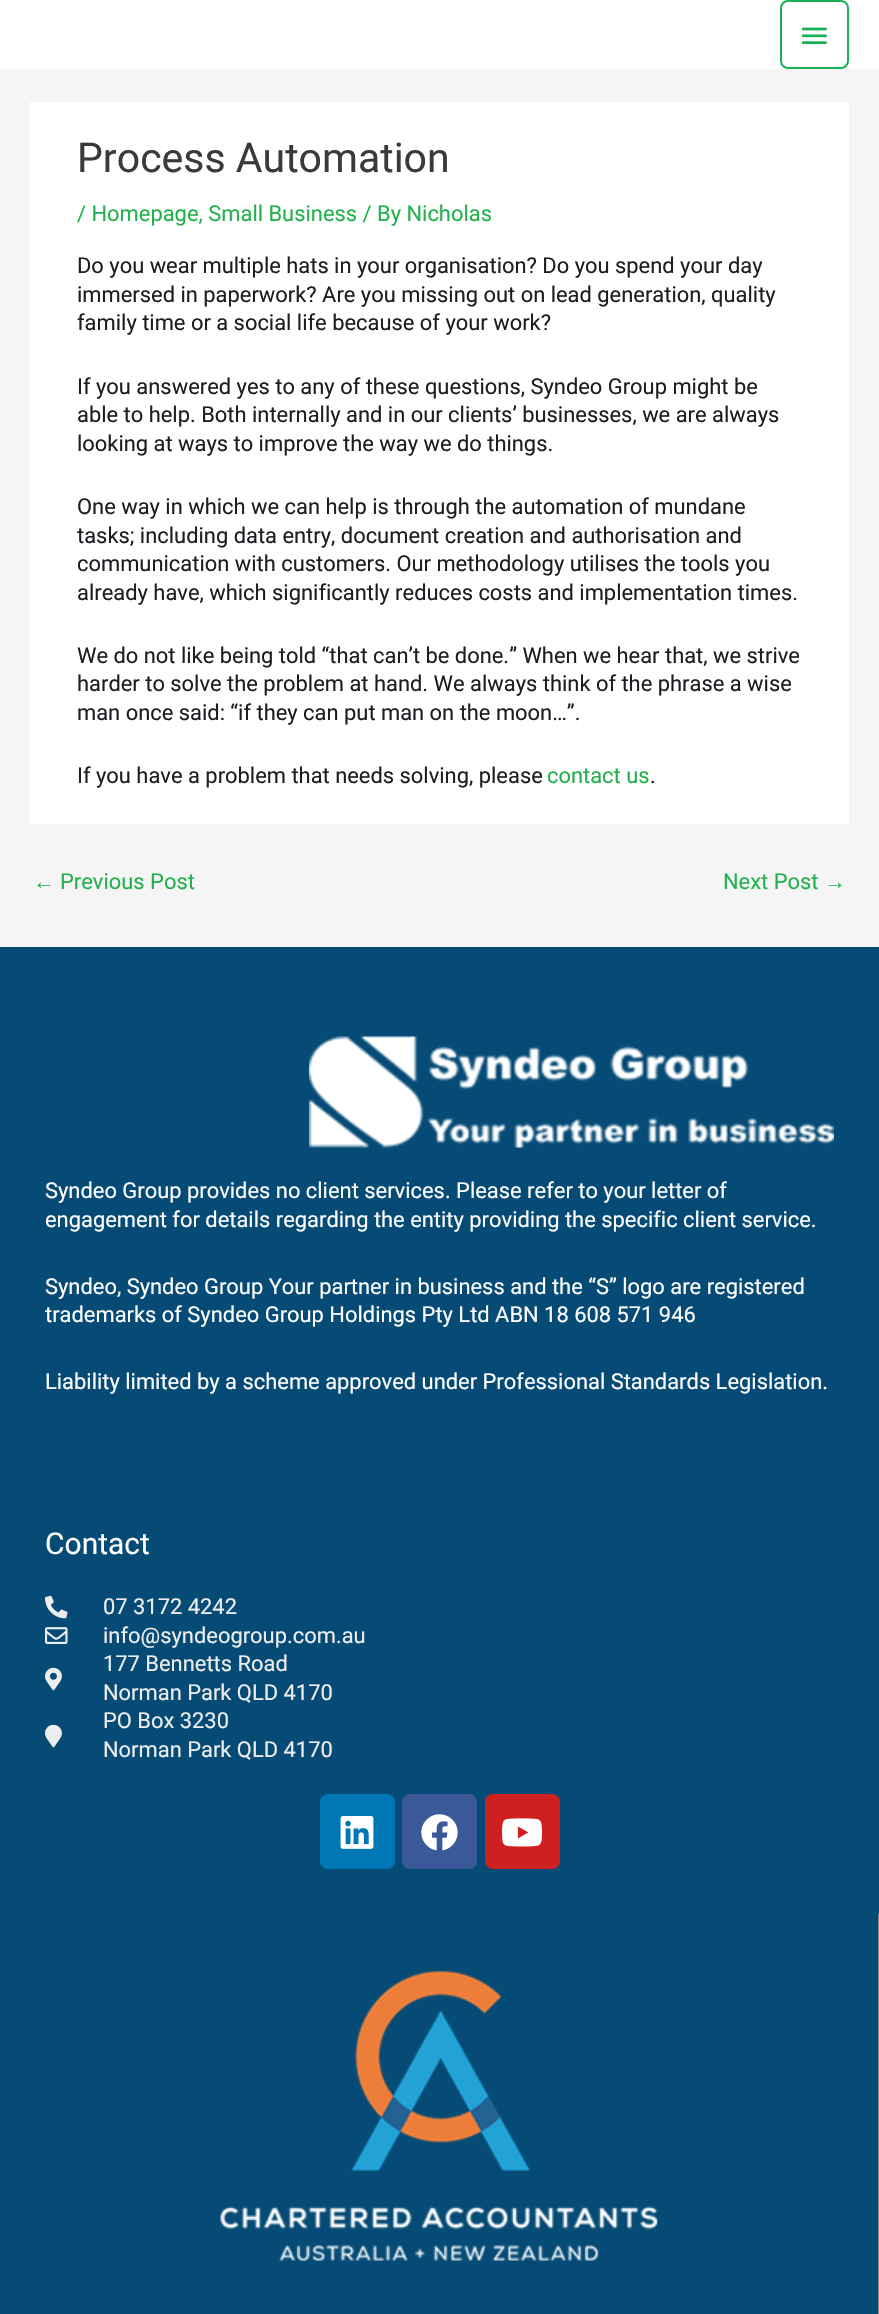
void draw(SkCanvas* canvas) {
	SkPaint fill;
	fill.setAntiAlias(true);
	auto makeFont = [&](const char* family, int weight, float size, bool italic = false) {
		SkFontStyle style(weight, SkFontStyle::kNormal_Width,
			italic ? SkFontStyle::kItalic_Slant : SkFontStyle::kUpright_Slant);
		SkFont result(fontMgr->matchFamilyStyle(family, style), size);
		result.setSubpixel(true);
		return result;
	};
	auto text = [&](const char* s, float x, float y, const SkFont& font) {
		canvas->drawString(s, x, y, font, fill);
	};
	auto box = [&](float l, float t, float r, float b) {
		canvas->drawRect(SkRect::MakeLTRB(l, t, r, b), fill);
	};
	auto roundBox = [&](float l, float t, float r, float b, float radius) {
		canvas->drawRoundRect(SkRect::MakeLTRB(l, t, r, b), radius, radius, fill);
	};
	auto picture = [&](const char* path, float l, float t, float r, float b) {
		auto image = SkImages::DeferredFromEncodedData(SkData::MakeFromFileName(path));
		canvas->drawImageRect(image, SkRect::MakeLTRB(l, t, r, b), SkSamplingOptions());
	};
	canvas->clear(0xFFF5F5F5);
	fill.setColor(0xFFFFFFFF);
	box(0, 0, 879, 69);
	fill.setStyle(SkPaint::kStroke_Style);
	fill.setStrokeWidth(2);
	fill.setColor(0xFF1AB055);
	canvas->drawRoundRect(SkRect::MakeLTRB(781, 1, 848, 68), 7, 7, fill);
	picture("image0.png", 802, 27, 827, 44);
	fill.setStyle(SkPaint::kFill_Style);
	fill.setColor(0xFFFFFFFF);
	box(30, 102, 849, 824);
	fill.setColor(0xFF064B76);
	box(0, 947, 879, 2314);
	picture("image1.png", 309, 1036, 834, 1148);
	picture("image2.png", 45, 1595, 68, 1619);
	picture("image3.png", 45, 1627, 68, 1644);
	picture("image4.png", 45, 1667, 62, 1691);
	picture("image5.png", 45, 1724, 62, 1748);
	fill.setColor(0xFF0077B5);
	roundBox(320, 1794, 395, 1869, 8);
	picture("image6.png", 340, 1816, 374, 1849);
	fill.setColor(0xFF3B5998);
	roundBox(402, 1794, 477, 1869, 8);
	picture("image7.png", 421, 1814, 458, 1851);
	fill.setColor(0xFFCD201F);
	roundBox(485, 1794, 560, 1869, 8);
	picture("image8.png", 502, 1818, 542, 1847);
	fill.setColor(0xFF878787);
	box(878, 1914, 879, 2314);
	picture("image9.png", 220, 1970, 658, 2261);
	auto font1 = makeFont("Roboto", 400, 41);
	fill.setColor(0xFF3A3A3A);
	text("Process Automation", 77, 172, font1);
	auto font2 = makeFont("Roboto", 400, 21.9f);
	fill.setColor(0xFF22B14C);
	text("/ Homepage, Small Business / By Nicholas", 77, 221, font2);
	fill.setColor(0xFF1D1D23);
	text("Do you wear multiple hats in your organisation? Do you spend your day", 77, 273, font2);
	text("immersed in paperwork? Are you missing out on lead generation, quality", 77, 302, font2);
	text("family time or a social life because of your work?", 77, 330, font2);
	text("If you answered yes to any of these questions, Syndeo Group might be", 77, 394, font2);
	text("able to help. Both internally and in our clients’ businesses, we are always", 77, 422, font2);
	text("looking at ways to improve the way we do things.", 77, 451, font2);
	text("One way in which we can help is through the automation of mundane", 77, 514, font2);
	text("tasks; including data entry, document creation and authorisation and", 77, 543, font2);
	text("communication with customers. Our methodology utilises the tools you", 77, 571, font2);
	text("already have, which significantly reduces costs and implementation times.", 77, 600, font2);
	text("We do not like being told “that can’t be done.” When we hear that, we strive", 77, 663, font2);
	text("harder to solve the problem at hand. We always think of the phrase a wise", 77, 691, font2);
	text("man once said: “if they can put man on the moon…”.", 77, 720, font2);
	text("If you have a problem that needs solving, please", 77, 783, font2);
	fill.setColor(0xFF22B14C);
	text("contact us", 547, 783, font2);
	fill.setColor(0xFF1D1D23);
	text(".", 650, 783, font2);
	auto font3 = makeFont("Liberation Sans", 400, 21.9f);
	fill.setColor(0xFF22B14C);
	text("←", 33, 889, font3);
	text("Previous Post", 60, 889, font2);
	text("Next Post", 723, 889, font2);
	text("→", 824, 889, font3);
	fill.setColor(0xFFFFFFFF);
	text("Syndeo Group provides no client services. Please refer to your letter of", 45, 1198, font2);
	text("engagement for details regarding the entity providing the specific client service.", 45, 1227, font2);
	text("Syndeo, Syndeo Group Your partner in business and the “S” logo are registered", 45, 1294, font2);
	text("trademarks of Syndeo Group Holdings Pty Ltd ABN 18 608 571 946", 45, 1322, font2);
	text("Liability limited by a scheme approved under Professional Standards Legislation.", 45, 1389, font2);
	auto font4 = makeFont("Roboto", 400, 30);
	text("Contact", 45, 1554, font4);
	fill.setColor(0xFFEDEDED);
	text("07 3172 4242", 103, 1614, font2);
	text("info@syndeogroup.com.au", 103, 1643, font2);
	text("177 Bennetts Road", 103, 1671, font2);
	text("Norman Park QLD 4170", 103, 1700, font2);
	text("PO Box 3230", 103, 1728, font2);
	text("Norman Park QLD 4170", 103, 1757, font2);
}
